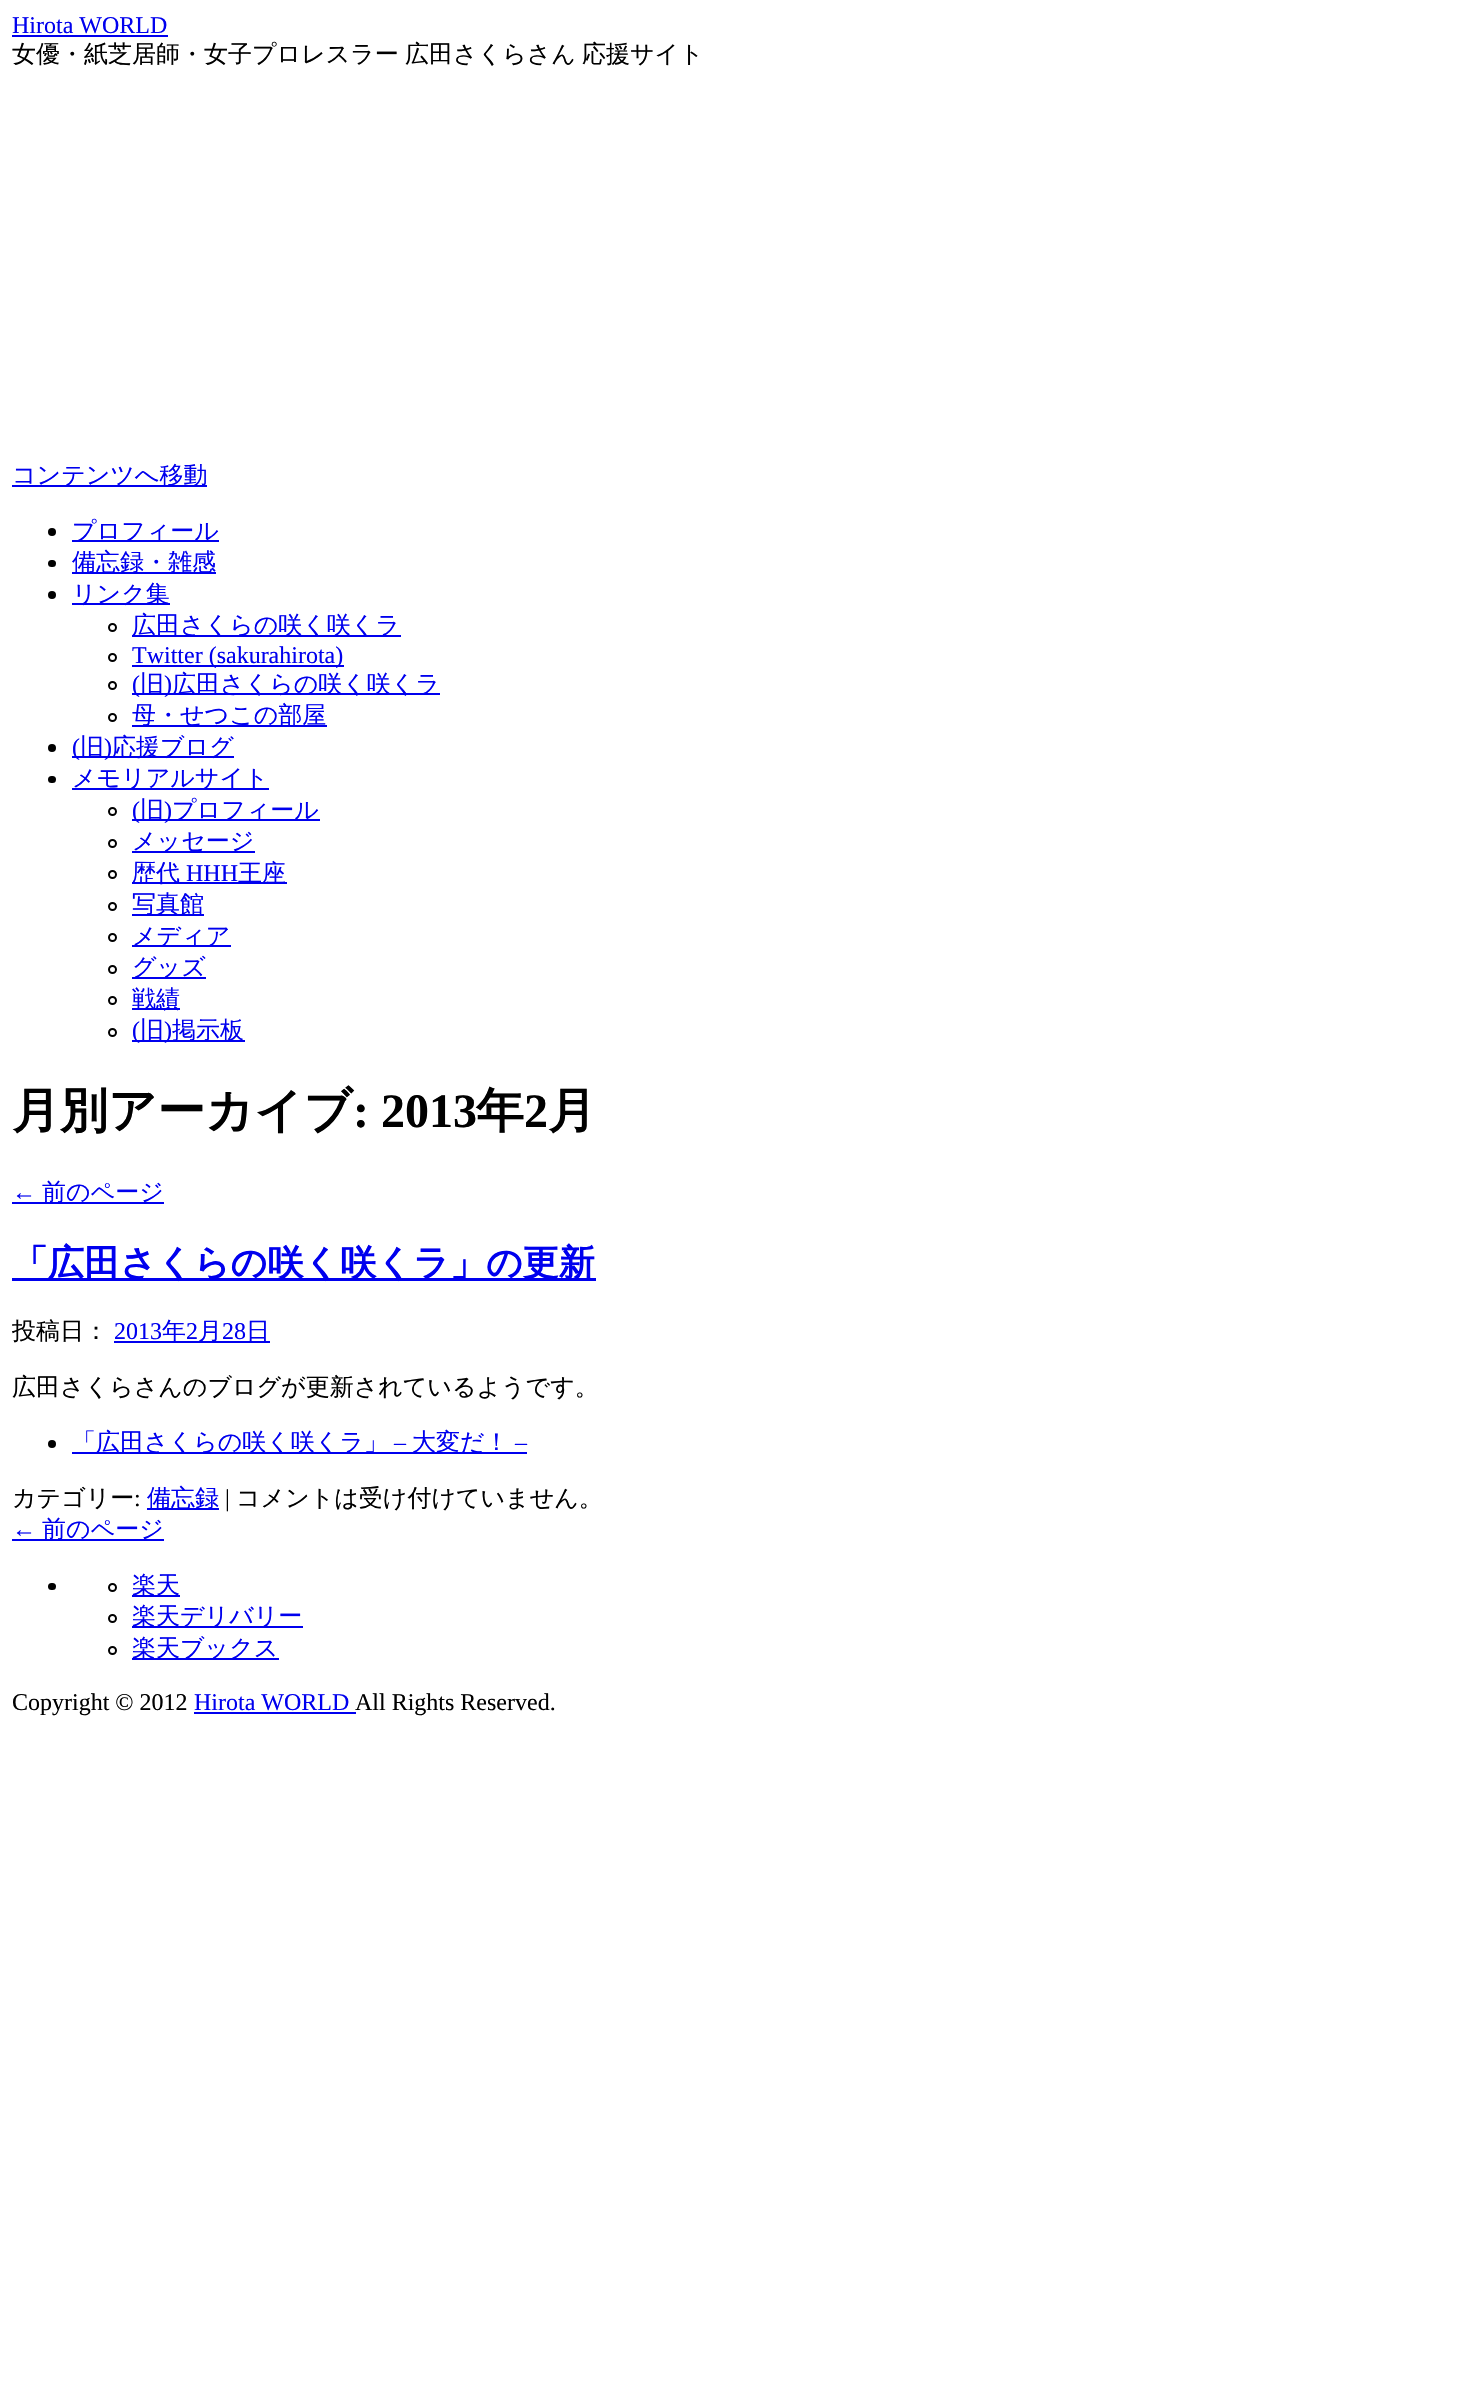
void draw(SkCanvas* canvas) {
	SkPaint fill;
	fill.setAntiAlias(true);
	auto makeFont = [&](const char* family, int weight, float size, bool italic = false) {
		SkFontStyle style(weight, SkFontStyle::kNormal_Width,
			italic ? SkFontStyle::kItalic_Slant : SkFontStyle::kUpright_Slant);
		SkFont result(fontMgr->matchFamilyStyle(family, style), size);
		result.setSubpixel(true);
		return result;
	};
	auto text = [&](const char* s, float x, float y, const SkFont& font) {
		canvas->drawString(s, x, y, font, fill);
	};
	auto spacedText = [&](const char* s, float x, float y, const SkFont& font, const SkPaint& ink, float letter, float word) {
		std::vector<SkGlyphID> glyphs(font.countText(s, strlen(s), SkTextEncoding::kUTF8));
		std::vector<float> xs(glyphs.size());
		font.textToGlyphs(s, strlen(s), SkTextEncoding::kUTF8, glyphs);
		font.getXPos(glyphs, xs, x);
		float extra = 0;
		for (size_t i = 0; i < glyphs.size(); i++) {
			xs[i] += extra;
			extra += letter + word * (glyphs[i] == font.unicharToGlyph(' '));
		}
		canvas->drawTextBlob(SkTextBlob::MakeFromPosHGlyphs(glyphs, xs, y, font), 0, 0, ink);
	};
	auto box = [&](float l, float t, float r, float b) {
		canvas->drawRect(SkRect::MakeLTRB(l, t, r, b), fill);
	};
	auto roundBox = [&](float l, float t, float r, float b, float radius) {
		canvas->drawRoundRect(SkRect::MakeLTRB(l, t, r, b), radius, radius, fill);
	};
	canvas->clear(0xFFFFFFFF);
	fill.setColor(0xFF0000EE);
	box(12, 35, 168, 37);
	box(12, 485, 207, 487);
	fill.setColor(0xFF000000);
	canvas->drawCircle(52, 532, 4, fill);
	fill.setColor(0xFF0000EE);
	box(72, 540, 219, 542);
	fill.setColor(0xFF000000);
	roundBox(48, 560, 56, 567, 3.5f);
	fill.setColor(0xFF0000EE);
	box(72, 572, 216, 574);
	fill.setColor(0xFF000000);
	canvas->drawCircle(52, 595, 4, fill);
	fill.setColor(0xFF0000EE);
	box(72, 603, 170, 605);
	fill.setStyle(SkPaint::kStroke_Style);
	fill.setStrokeWidth(2);
	fill.setColor(0xFF000000);
	canvas->drawCircle(112.5f, 627.5f, 3.5f, fill);
	fill.setStyle(SkPaint::kFill_Style);
	fill.setColor(0xFF0000EE);
	box(132, 635, 401, 637);
	fill.setStyle(SkPaint::kStroke_Style);
	fill.setColor(0xFF000000);
	canvas->drawCircle(112.5f, 657.5f, 3.5f, fill);
	fill.setStyle(SkPaint::kFill_Style);
	fill.setColor(0xFF0000EE);
	box(132, 665, 344, 667);
	fill.setStyle(SkPaint::kStroke_Style);
	fill.setColor(0xFF000000);
	canvas->drawCircle(112.5f, 685.5f, 3.5f, fill);
	fill.setStyle(SkPaint::kFill_Style);
	fill.setColor(0xFF0000EE);
	box(132, 693, 440, 695);
	fill.setStyle(SkPaint::kStroke_Style);
	fill.setColor(0xFF000000);
	canvas->drawCircle(112.5f, 717.5f, 3.5f, fill);
	fill.setStyle(SkPaint::kFill_Style);
	fill.setColor(0xFF0000EE);
	box(132, 725, 327, 727);
	fill.setColor(0xFF000000);
	canvas->drawCircle(52, 748, 4, fill);
	fill.setColor(0xFF0000EE);
	box(72, 756, 234, 758);
	fill.setColor(0xFF000000);
	roundBox(48, 776, 56, 783, 3.5f);
	fill.setColor(0xFF0000EE);
	box(72, 788, 269, 790);
	fill.setStyle(SkPaint::kStroke_Style);
	fill.setColor(0xFF000000);
	canvas->drawCircle(112.5f, 811.5f, 3.5f, fill);
	fill.setStyle(SkPaint::kFill_Style);
	fill.setColor(0xFF0000EE);
	box(132, 819, 320, 821);
	fill.setStyle(SkPaint::kStroke_Style);
	fill.setColor(0xFF000000);
	canvas->drawCircle(112.5f, 843.5f, 3.5f, fill);
	fill.setStyle(SkPaint::kFill_Style);
	fill.setColor(0xFF0000EE);
	box(132, 851, 255, 853);
	fill.setStyle(SkPaint::kStroke_Style);
	fill.setColor(0xFF000000);
	canvas->drawCircle(112.5f, 874.5f, 3.5f, fill);
	fill.setStyle(SkPaint::kFill_Style);
	fill.setColor(0xFF0000EE);
	box(132, 882, 287, 884);
	fill.setStyle(SkPaint::kStroke_Style);
	fill.setColor(0xFF000000);
	canvas->drawCircle(112.5f, 906.5f, 3.5f, fill);
	fill.setStyle(SkPaint::kFill_Style);
	fill.setColor(0xFF0000EE);
	box(132, 914, 204, 916);
	fill.setStyle(SkPaint::kStroke_Style);
	fill.setColor(0xFF000000);
	canvas->drawCircle(112.5f, 937.5f, 3.5f, fill);
	fill.setStyle(SkPaint::kFill_Style);
	fill.setColor(0xFF0000EE);
	box(132, 945, 231, 947);
	fill.setStyle(SkPaint::kStroke_Style);
	fill.setColor(0xFF000000);
	canvas->drawCircle(112.5f, 969.5f, 3.5f, fill);
	fill.setStyle(SkPaint::kFill_Style);
	fill.setColor(0xFF0000EE);
	box(132, 977, 206, 979);
	fill.setStyle(SkPaint::kStroke_Style);
	fill.setColor(0xFF000000);
	canvas->drawCircle(112.5f, 1000.5f, 3.5f, fill);
	fill.setStyle(SkPaint::kFill_Style);
	fill.setColor(0xFF0000EE);
	box(132, 1008, 180, 1010);
	fill.setStyle(SkPaint::kStroke_Style);
	fill.setColor(0xFF000000);
	canvas->drawCircle(112.5f, 1032.5f, 3.5f, fill);
	fill.setStyle(SkPaint::kFill_Style);
	fill.setColor(0xFF0000EE);
	box(132, 1040, 245, 1042);
	box(12, 1202, 164, 1204);
	box(12, 1278, 596, 1281);
	box(114, 1341, 270, 1343);
	fill.setColor(0xFF000000);
	canvas->drawCircle(52, 1444, 4, fill);
	fill.setColor(0xFF0000EE);
	box(72, 1452, 527, 1454);
	box(147, 1508, 219, 1510);
	box(12, 1539, 164, 1541);
	fill.setColor(0xFF000000);
	roundBox(48, 1583, 56, 1590, 3.5f);
	fill.setStyle(SkPaint::kStroke_Style);
	canvas->drawCircle(112.5f, 1587.5f, 3.5f, fill);
	fill.setStyle(SkPaint::kFill_Style);
	fill.setColor(0xFF0000EE);
	box(132, 1595, 180, 1597);
	fill.setStyle(SkPaint::kStroke_Style);
	fill.setColor(0xFF000000);
	canvas->drawCircle(112.5f, 1618.5f, 3.5f, fill);
	fill.setStyle(SkPaint::kFill_Style);
	fill.setColor(0xFF0000EE);
	box(132, 1626, 303, 1628);
	fill.setStyle(SkPaint::kStroke_Style);
	fill.setColor(0xFF000000);
	canvas->drawCircle(112.5f, 1650.5f, 3.5f, fill);
	fill.setStyle(SkPaint::kFill_Style);
	fill.setColor(0xFF0000EE);
	box(132, 1658, 279, 1660);
	box(194, 1712, 356, 1714);
	auto font1 = makeFont("Liberation Serif", 400, 24);
	text("Hirota WORLD", 12, 33, font1);
	auto font2 = makeFont("WenQuanYi Zen Hei", 500, 24);
	fill.setColor(0xFF000000);
	spacedText("女優・紙芝居師・女子プロレスラー 広田さくらさん 応援サイト", 12, 62, font2, fill, 0, -1);
	fill.setColor(0xFF0000EE);
	text("コンテンツへ移動", 12, 483, font2);
	text("プロフィール", 72, 539, font2);
	text("備忘録・雑感", 72, 570, font2);
	text("リンク集", 72, 602, font2);
	text("広田さくらの咲く咲くラ", 132, 633, font2);
	text("Twitter (sakurahirota)", 132, 663, font1);
	text("(", 132, 692, font1);
	text("旧", 140, 692, font2);
	text(")", 164, 692, font1);
	text("広田さくらの咲く咲くラ", 172, 692, font2);
	text("母・せつこの部屋", 132, 723, font2);
	text("(", 72, 755, font1);
	text("旧", 80, 755, font2);
	text(")", 104, 755, font1);
	text("応援ブログ", 112, 755, font2);
	text("メモリアルサイト", 72, 786, font2);
	text("(", 132, 818, font1);
	text("旧", 140, 818, font2);
	text(")", 164, 818, font1);
	text("プロフィール", 172, 818, font2);
	text("メッセージ", 132, 849, font2);
	text("歴代", 132, 881, font2);
	text("HHH", 186, 881, font1);
	text("王座", 238, 881, font2);
	text("写真館", 132, 912, font2);
	text("メディア", 132, 944, font2);
	text("グッズ", 132, 975, font2);
	text("戦績", 132, 1007, font2);
	text("(", 132, 1038, font1);
	text("旧", 140, 1038, font2);
	text(")", 164, 1038, font1);
	text("掲示板", 172, 1038, font2);
	auto font3 = makeFont("WenQuanYi Zen Hei", 700, 48);
	fill.setColor(0xFF000000);
	text("月別アーカイブ", 12, 1127, font3);
	auto font4 = makeFont("Liberation Serif", 700, 48);
	text(": 2013", 353, 1127, font4);
	text("年", 476, 1127, font3);
	text("2", 524, 1127, font4);
	text("月", 548, 1127, font3);
	fill.setColor(0xFF0000EE);
	text("←", 12, 1200, font1);
	text("前のページ", 42, 1200, font2);
	auto font5 = makeFont("WenQuanYi Zen Hei", 700, 36);
	text("「広田さくらの咲く咲くラ」の更新", 12, 1275, font5);
	fill.setColor(0xFF000000);
	text("投稿日：", 12, 1339, font2);
	fill.setColor(0xFF0000EE);
	text("2013", 114, 1339, font1);
	text("年", 162, 1339, font2);
	text("2", 186, 1339, font1);
	text("月", 198, 1339, font2);
	text("28", 222, 1339, font1);
	text("日", 246, 1339, font2);
	fill.setColor(0xFF000000);
	text("広田さくらさんのブログが更新されているようです。", 12, 1395, font2);
	fill.setColor(0xFF0000EE);
	text("「広田さくらの咲く咲くラ」", 72, 1450, font2);
	text("–", 394, 1450, font1);
	text("大変だ！", 412, 1450, font2);
	text("–", 515, 1450, font1);
	fill.setColor(0xFF000000);
	text("カテゴリー", 12, 1506, font2);
	text(":", 134, 1506, font1);
	fill.setColor(0xFF0000EE);
	text("備忘録", 147, 1506, font2);
	fill.setColor(0xFF000000);
	text("|", 225, 1506, font1);
	text("コメントは受け付けていません。", 236, 1506, font2);
	fill.setColor(0xFF0000EE);
	text("←", 12, 1537, font1);
	text("前のページ", 42, 1537, font2);
	text("楽天", 132, 1593, font2);
	text("楽天デリバリー", 132, 1624, font2);
	text("楽天ブックス", 132, 1656, font2);
	fill.setColor(0xFF000000);
	text("Copyright © 2012", 12, 1710, font1);
	fill.setColor(0xFF0000EE);
	text("Hirota WORLD", 194, 1710, font1);
	fill.setColor(0xFF000000);
	text("All Rights Reserved.", 355, 1710, font1);
}
